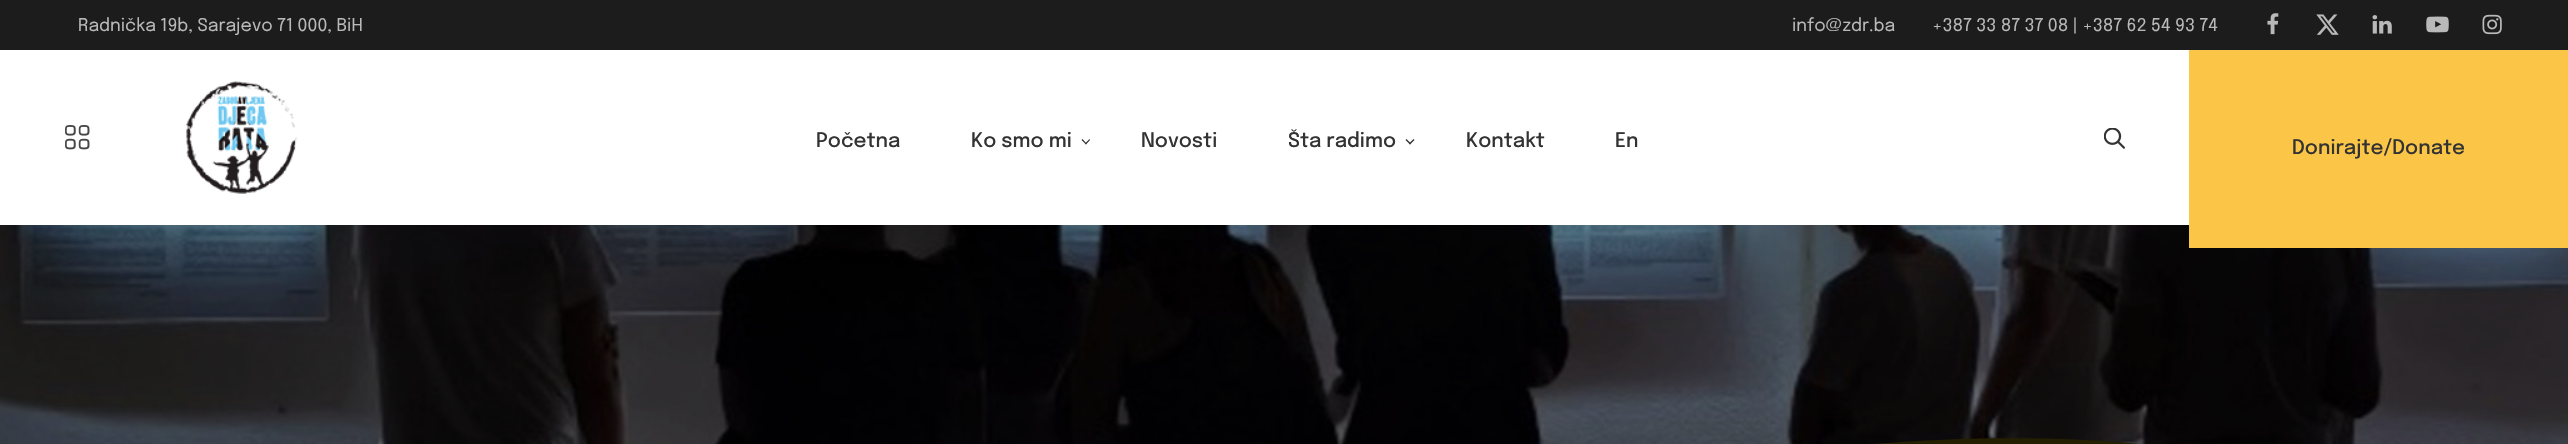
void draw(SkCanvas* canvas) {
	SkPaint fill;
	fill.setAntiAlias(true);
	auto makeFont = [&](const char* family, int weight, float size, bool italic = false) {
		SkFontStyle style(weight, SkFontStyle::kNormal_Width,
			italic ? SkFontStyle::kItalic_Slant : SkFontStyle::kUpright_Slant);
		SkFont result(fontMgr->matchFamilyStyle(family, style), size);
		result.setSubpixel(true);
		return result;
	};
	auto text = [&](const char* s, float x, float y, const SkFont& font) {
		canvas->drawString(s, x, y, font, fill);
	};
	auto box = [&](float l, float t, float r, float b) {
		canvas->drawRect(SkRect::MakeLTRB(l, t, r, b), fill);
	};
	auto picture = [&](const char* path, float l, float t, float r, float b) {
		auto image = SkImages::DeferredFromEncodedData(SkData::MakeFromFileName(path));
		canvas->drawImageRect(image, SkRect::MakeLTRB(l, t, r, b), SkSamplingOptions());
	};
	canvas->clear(0xFFFFFFFF);
	fill.setColor(0xFF1C1C1C);
	box(0, 0, 2568, 50);
	picture("image0.png", 2267, 13, 2279, 35);
	picture("image1.png", 2316, 14, 2339, 35);
	picture("image2.png", 2372, 15, 2392, 34);
	picture("image3.png", 2426, 16, 2449, 33);
	picture("image4.png", 2482, 14, 2502, 35);
	picture("image5.png", 65, 125, 90, 150);
	picture("image6.png", 186, 81, 298, 194);
	fill.setColor(0xFF333333);
	canvas->drawPath(SkPathBuilder().moveTo(1085, 143.5f).lineTo(1089.5f, 139).lineTo(1090, 140).lineTo(1086, 144.5f).close().detach(), fill);
	canvas->drawPath(SkPathBuilder().moveTo(1081.5f, 140).lineTo(1082.5f, 139).lineTo(1086.5f, 143.5f).lineTo(1086, 144.5f).close().detach(), fill);
	canvas->drawPath(SkPathBuilder().moveTo(1409, 143.5f).lineTo(1413.5f, 139).lineTo(1414.5f, 140).lineTo(1410, 144.5f).close().detach(), fill);
	canvas->drawPath(SkPathBuilder().moveTo(1405.5f, 140).lineTo(1406.5f, 139).lineTo(1411, 143.5f).lineTo(1410, 144.5f).close().detach(), fill);
	picture("image7.png", 2104, 128, 2125, 149);
	picture("image8.png", 0, 225, 2568, 444);
	fill.setColor(0xFFFBC647);
	box(2189, 50, 2568, 248);
	fill.setColor(0xFF231F00);
	canvas->drawPath(SkPathBuilder().moveTo(1549, 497).cubicTo(2037, 379, 2470, 444, 2518, 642).cubicTo(2566, 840, 2210, 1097, 1723, 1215).cubicTo(1236, 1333, 802, 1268, 754, 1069).cubicTo(706, 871, 1062, 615, 1549, 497).close().detach(), fill);
	auto font1 = makeFont("Epilogue", 400, 17.5f);
	fill.setColor(0xFFB9B9B9);
	text("Radnička 19b, Sarajevo 71 000, BiH", 78, 31, font1);
	text("info@zdr.ba", 1792, 31, font1);
	text("+387 33 87 37 08 | +387 62 54 93 74", 1932, 31, font1);
	auto font2 = makeFont("Epilogue", 500, 20);
	fill.setColor(0xFF333333);
	text("Početna", 816, 147, font2);
	text("Ko smo mi", 971, 147, font2);
	text("Novosti", 1141, 147, font2);
	text("Šta radimo", 1288, 147, font2);
	text("Kontakt", 1466, 147, font2);
	text("En", 1615, 147, font2);
	text("Donirajte/Donate", 2292, 154, font2);
}
